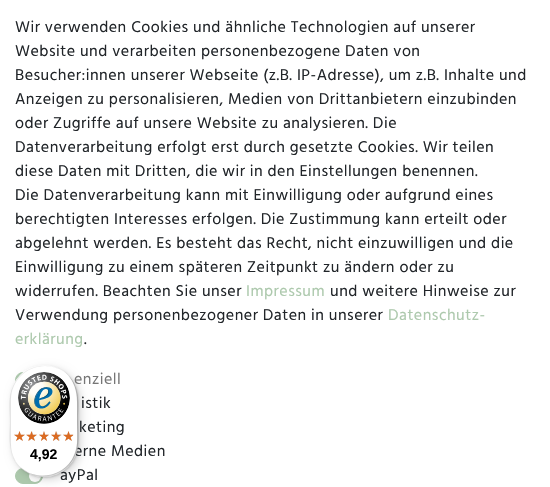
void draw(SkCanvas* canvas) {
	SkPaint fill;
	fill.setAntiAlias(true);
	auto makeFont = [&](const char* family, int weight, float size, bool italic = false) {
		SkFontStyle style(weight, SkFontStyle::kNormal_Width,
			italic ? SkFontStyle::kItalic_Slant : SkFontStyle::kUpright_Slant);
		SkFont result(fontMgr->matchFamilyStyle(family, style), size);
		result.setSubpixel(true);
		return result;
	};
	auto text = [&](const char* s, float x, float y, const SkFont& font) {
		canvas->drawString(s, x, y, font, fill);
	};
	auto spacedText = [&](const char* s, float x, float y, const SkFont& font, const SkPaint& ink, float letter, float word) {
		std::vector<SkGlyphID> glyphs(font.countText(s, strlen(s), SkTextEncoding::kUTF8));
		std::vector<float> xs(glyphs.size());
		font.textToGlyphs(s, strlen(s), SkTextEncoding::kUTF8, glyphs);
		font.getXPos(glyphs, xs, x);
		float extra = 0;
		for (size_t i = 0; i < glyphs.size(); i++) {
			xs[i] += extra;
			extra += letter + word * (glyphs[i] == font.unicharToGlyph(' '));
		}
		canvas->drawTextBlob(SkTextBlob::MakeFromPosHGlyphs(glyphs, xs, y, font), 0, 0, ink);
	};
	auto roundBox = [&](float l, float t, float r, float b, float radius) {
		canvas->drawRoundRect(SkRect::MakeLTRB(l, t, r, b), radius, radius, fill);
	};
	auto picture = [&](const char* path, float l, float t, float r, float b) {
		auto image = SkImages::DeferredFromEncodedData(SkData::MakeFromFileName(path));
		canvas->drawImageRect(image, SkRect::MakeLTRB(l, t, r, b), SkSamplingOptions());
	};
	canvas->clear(0xFFFFFFFF);
	fill.setColor(0xFFADC9AD);
	canvas->drawRoundRect(SkRect::MakeLTRB(15.5f, 372.5f, 42.5f, 387.5f), 7.5f, 7.5f, fill);
	fill.setStyle(SkPaint::kStroke_Style);
	fill.setStrokeWidth(1);
	canvas->drawRoundRect(SkRect::MakeLTRB(15.5f, 372.5f, 42.5f, 387.5f), 7.5f, 7.5f, fill);
	fill.setStyle(SkPaint::kFill_Style);
	canvas->drawRoundRect(SkRect::MakeLTRB(15.5f, 468.5f, 42.5f, 483.5f), 7.5f, 7.5f, fill);
	fill.setStyle(SkPaint::kStroke_Style);
	canvas->drawRoundRect(SkRect::MakeLTRB(15.5f, 468.5f, 42.5f, 483.5f), 7.5f, 7.5f, fill);
	fill.setStyle(SkPaint::kFill_Style);
	fill.setColor(0xFFFFFFFF);
	canvas->drawCircle(35, 476, 6, fill);
	fill.setColor(0x26000000);
	fill.setMaskFilter(SkMaskFilter::MakeBlur(kNormal_SkBlurStyle, 4));
	canvas->drawRoundRect(SkRect::MakeLTRB(13, 368, 81, 480), 34, 34, fill);
	fill.setMaskFilter(nullptr);
	fill.setMaskFilter(SkMaskFilter::MakeBlur(kNormal_SkBlurStyle, 1));
	canvas->drawRoundRect(SkRect::MakeLTRB(11, 366, 79, 478), 34, 34, fill);
	fill.setMaskFilter(nullptr);
	auto font1 = makeFont("Hind", 400, 16);
	fill.setColor(0xFF212529);
	spacedText("Wir verwenden Cookies und ähnliche Technologien auf unserer", 15, 32, font1, fill, 0.5f, 0);
	spacedText("Website und verarbeiten personenbezogene Daten von", 15, 56, font1, fill, 0.5f, 0);
	spacedText("Besucher:innen unserer Webseite (z.B. IP-Adresse), um z.B. Inhalte und", 15, 80, font1, fill, 0.5f, 0);
	spacedText("Anzeigen zu personalisieren, Medien von Drittanbietern einzubinden", 15, 104, font1, fill, 0.5f, 0);
	spacedText("oder Zugriffe auf unsere Website zu analysieren. Die", 15, 128, font1, fill, 0.5f, 0);
	spacedText("Datenverarbeitung erfolgt erst durch gesetzte Cookies. Wir teilen", 15, 152, font1, fill, 0.5f, 0);
	spacedText("diese Daten mit Dritten, die wir in den Einstellungen benennen.", 15, 176, font1, fill, 0.5f, 0);
	spacedText("Die Datenverarbeitung kann mit Einwilligung oder aufgrund eines", 15, 200, font1, fill, 0.5f, 0);
	spacedText("berechtigten Interesses erfolgen. Die Zustimmung kann erteilt oder", 15, 224, font1, fill, 0.5f, 0);
	spacedText("abgelehnt werden. Es besteht das Recht, nicht einzuwilligen und die", 15, 248, font1, fill, 0.5f, 0);
	spacedText("Einwilligung zu einem späteren Zeitpunkt zu ändern oder zu", 15, 272, font1, fill, 0.5f, 0);
	spacedText("widerrufen. Beachten Sie unser", 15, 296, font1, fill, 0.5f, 0);
	fill.setColor(0xFFADC9AD);
	spacedText("Impressum", 246, 296, font1, fill, 0.5f, 0);
	fill.setColor(0xFF212529);
	spacedText("und weitere Hinweise zur", 330, 296, font1, fill, 0.5f, 0);
	spacedText("Verwendung personenbezogener Daten in unserer", 15, 320, font1, fill, 0.5f, 0);
	fill.setColor(0xFFADC9AD);
	spacedText("Datenschutz-", 388, 320, font1, fill, 0.5f, 0);
	spacedText("erklärung", 15, 344, font1, fill, 0.5f, 0);
	fill.setColor(0xFF212529);
	spacedText(".", 84, 344, font1, fill, 0.5f, 0);
	fill.setColor(0xFF767676);
	spacedText("enziell", 74, 384, font1, fill, 0.5f, 0);
	fill.setColor(0xFF212529);
	spacedText("istik", 81, 408, font1, fill, 0.5f, 0);
	spacedText("keting", 79, 432, font1, fill, 0.5f, 0);
	spacedText("erne Medien", 74, 456, font1, fill, 0.5f, 0);
	spacedText("ayPal", 60, 480, font1, fill, 0.5f, 0);
	fill.setColor(0xFFFFFFFF);
	roundBox(10, 365, 78, 477, 34);
	fill.setColor(0x1A000000);
	canvas->drawPath(SkPathBuilder().moveTo(45, 366).cubicTo(53, 366, 61, 369, 67, 374).cubicTo(50, 359, 22, 365, 13, 386).cubicTo(8, 396, 10, 410, 10, 421).cubicTo(10, 436, 7, 453, 19, 466).cubicTo(14, 460, 11, 452, 11, 444).lineTo(11, 400).cubicTo(11, 381, 26, 366, 45, 366).close().detach(), fill);
	fill.setColor(0x33000000);
	canvas->drawPath(SkPathBuilder().moveTo(21, 468).cubicTo(38, 483, 66, 477, 75, 456).cubicTo(80, 446, 78, 432, 78, 421).cubicTo(78, 406, 81, 389, 69, 376).cubicTo(79, 389, 77, 405, 77, 420).cubicTo(77, 431, 79, 445, 74, 455).cubicTo(66, 476, 38, 482, 21, 468).close().detach(), fill);
	fill.setColor(0x33323232);
	canvas->drawPath(SkPathBuilder().moveTo(17, 464).cubicTo(24, 472, 33, 477, 44, 477).cubicTo(63, 477, 78, 462, 78, 443).lineTo(78, 399).cubicTo(78, 388, 73, 379, 65, 372).cubicTo(72, 379, 77, 388, 77, 398).lineTo(77, 442).cubicTo(77, 461, 62, 476, 43, 476).cubicTo(33, 476, 24, 471, 17, 464).close().detach(), fill);
	fill.setColor(0x4DFFFFFF);
	canvas->drawPath(SkPathBuilder().moveTo(10, 442).cubicTo(10, 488, 78, 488, 78, 442).cubicTo(78, 461, 62, 476, 44, 476).cubicTo(25, 476, 10, 461, 10, 442).close().detach(), fill);
	picture("image0.png", 18, 372, 70, 424);
	picture("image1.png", 14, 431, 25, 441);
	picture("image2.png", 27, 431, 37, 441);
	picture("image3.png", 39, 431, 49, 441);
	picture("image4.png", 51, 431, 62, 441);
	picture("image4.png", 63, 431, 74, 441);
	picture("image5.png", 14, 431, 25, 441);
	picture("image6.png", 26, 431, 37, 441);
	picture("image7.png", 39, 431, 49, 441);
	picture("image8.png", 51, 431, 61, 441);
	picture("image9.png", 63, 431, 73, 441);
	auto font2 = makeFont("Liberation Sans", 700, 14);
	fill.setColor(0xFF000000);
	text("4,92", 30, 459, font2);
}
